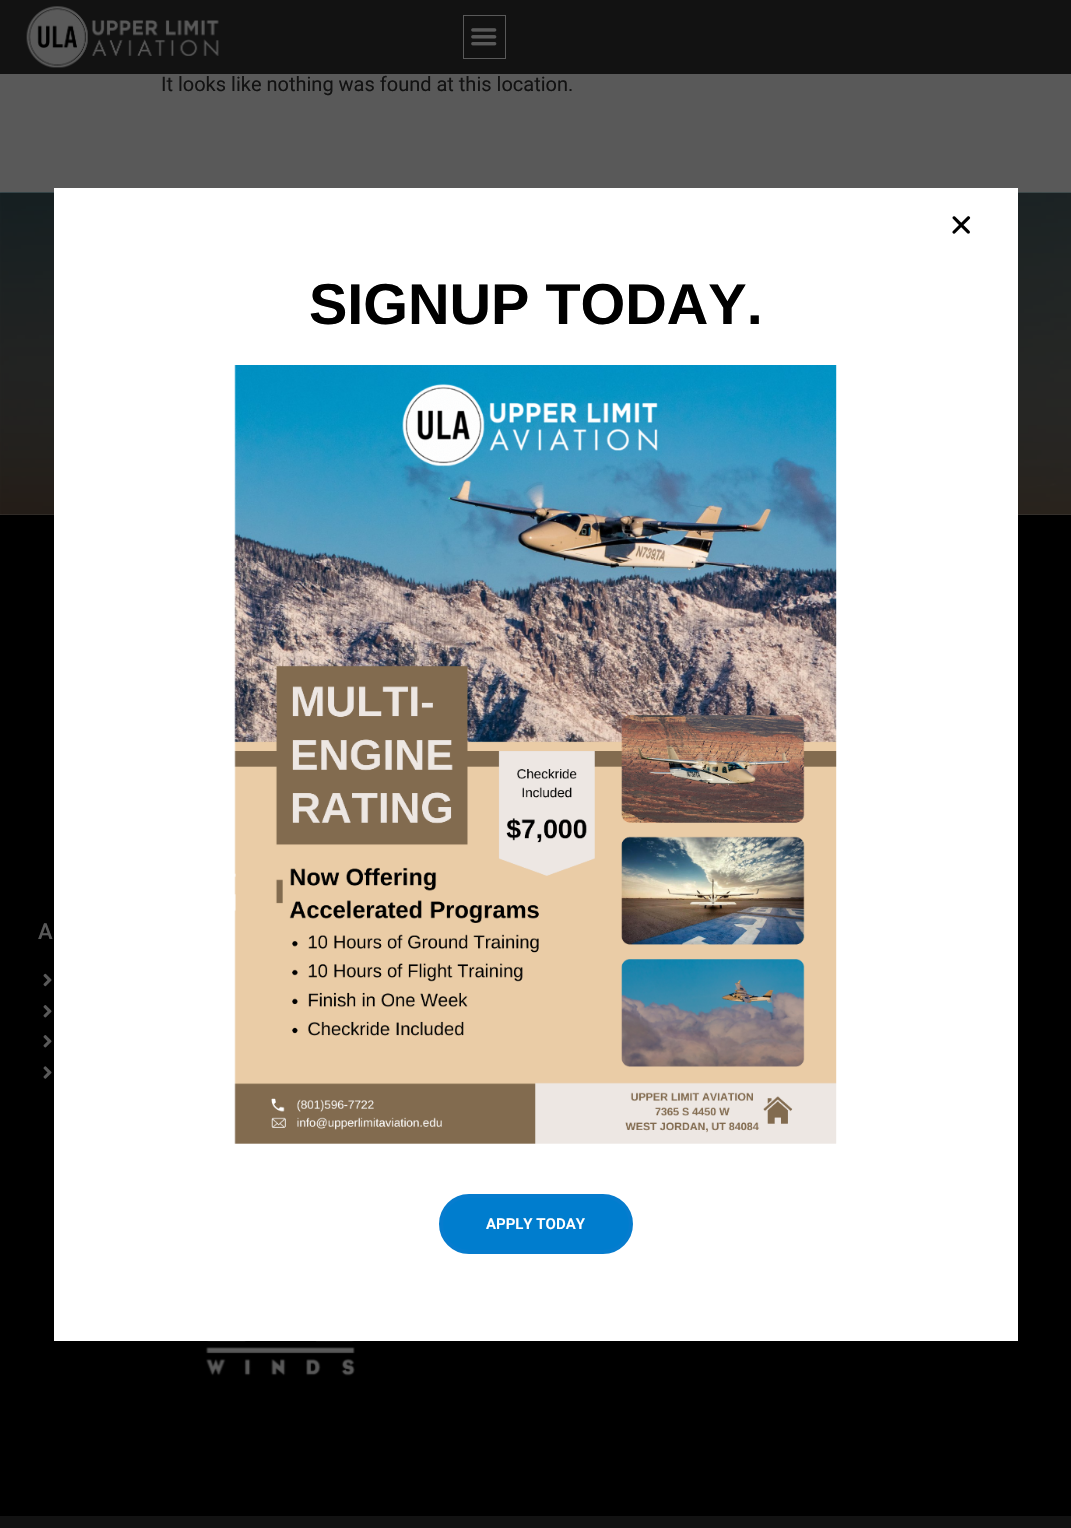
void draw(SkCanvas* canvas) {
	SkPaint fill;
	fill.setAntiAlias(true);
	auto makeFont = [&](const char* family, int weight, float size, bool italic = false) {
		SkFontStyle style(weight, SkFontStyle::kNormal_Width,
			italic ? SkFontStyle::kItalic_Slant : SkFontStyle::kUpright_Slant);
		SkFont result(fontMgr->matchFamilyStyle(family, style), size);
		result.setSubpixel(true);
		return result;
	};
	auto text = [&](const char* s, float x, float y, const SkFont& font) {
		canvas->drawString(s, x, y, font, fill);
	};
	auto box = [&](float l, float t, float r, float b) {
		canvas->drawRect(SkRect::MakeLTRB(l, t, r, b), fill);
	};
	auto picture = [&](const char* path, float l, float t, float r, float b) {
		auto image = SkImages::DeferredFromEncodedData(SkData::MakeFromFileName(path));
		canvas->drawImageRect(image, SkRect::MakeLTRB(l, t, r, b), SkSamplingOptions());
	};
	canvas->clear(0xFF595959);
	fill.setColor(0xFF121212);
	box(0, 0, 1071, 74);
	picture("image0.png", 26, 6, 219, 68);
	fill.setStyle(SkPaint::kStroke_Style);
	fill.setStrokeWidth(1);
	fill.setColor(0xFF595959);
	canvas->drawRect(SkRect::MakeLTRB(463.5f, 15.5f, 505.5f, 58.5f), fill);
	picture("image1.png", 471, 28, 497, 46);
	picture("image2.png", 0, 192, 1071, 515);
	fill.setStyle(SkPaint::kFill_Style);
	fill.setColor(0xFF000000);
	box(0, 515, 1071, 1516);
	picture("image3.png", 43, 973, 52, 987);
	picture("image4.png", 43, 1005, 52, 1018);
	picture("image4.png", 43, 1035, 52, 1048);
	picture("image5.png", 43, 1066, 52, 1079);
	picture("image6.png", 205, 1341, 355, 1376);
	fill.setColor(0xFF121212);
	box(0, 1516, 1071, 1528);
	fill.setColor(0xFFFFFFFF);
	box(54, 188, 1018, 1341);
	picture("image7.png", 952, 216, 971, 234);
	picture("image8.png", 234, 365, 837, 1144);
	fill.setColor(0xFF007DCE);
	canvas->drawRoundRect(SkRect::MakeLTRB(441, 1196, 631, 1252), 28, 28, fill);
	fill.setStyle(SkPaint::kStroke_Style);
	fill.setStrokeWidth(4);
	fill.setColor(0xFF067CCE);
	canvas->drawRoundRect(SkRect::MakeLTRB(441, 1196, 631, 1252), 28, 28, fill);
	auto font1 = makeFont("Roboto", 400, 20);
	fill.setStyle(SkPaint::kFill_Style);
	fill.setColor(0xFF121212);
	text("It looks like nothing was found at this location.", 161, 91, font1);
	auto font2 = makeFont("Roboto", 500, 22);
	fill.setColor(0xFF595959);
	text("A", 38, 939, font2);
	auto font3 = makeFont("Liberation Sans", 700, 57.5f);
	fill.setColor(0xFF000000);
	text("SIGNUP TODAY.", 309, 324, font3);
	auto font4 = makeFont("Roboto", 600, 15);
	fill.setColor(0xFFFFFFFF);
	text("APPLY TODAY", 486, 1229, font4);
}
